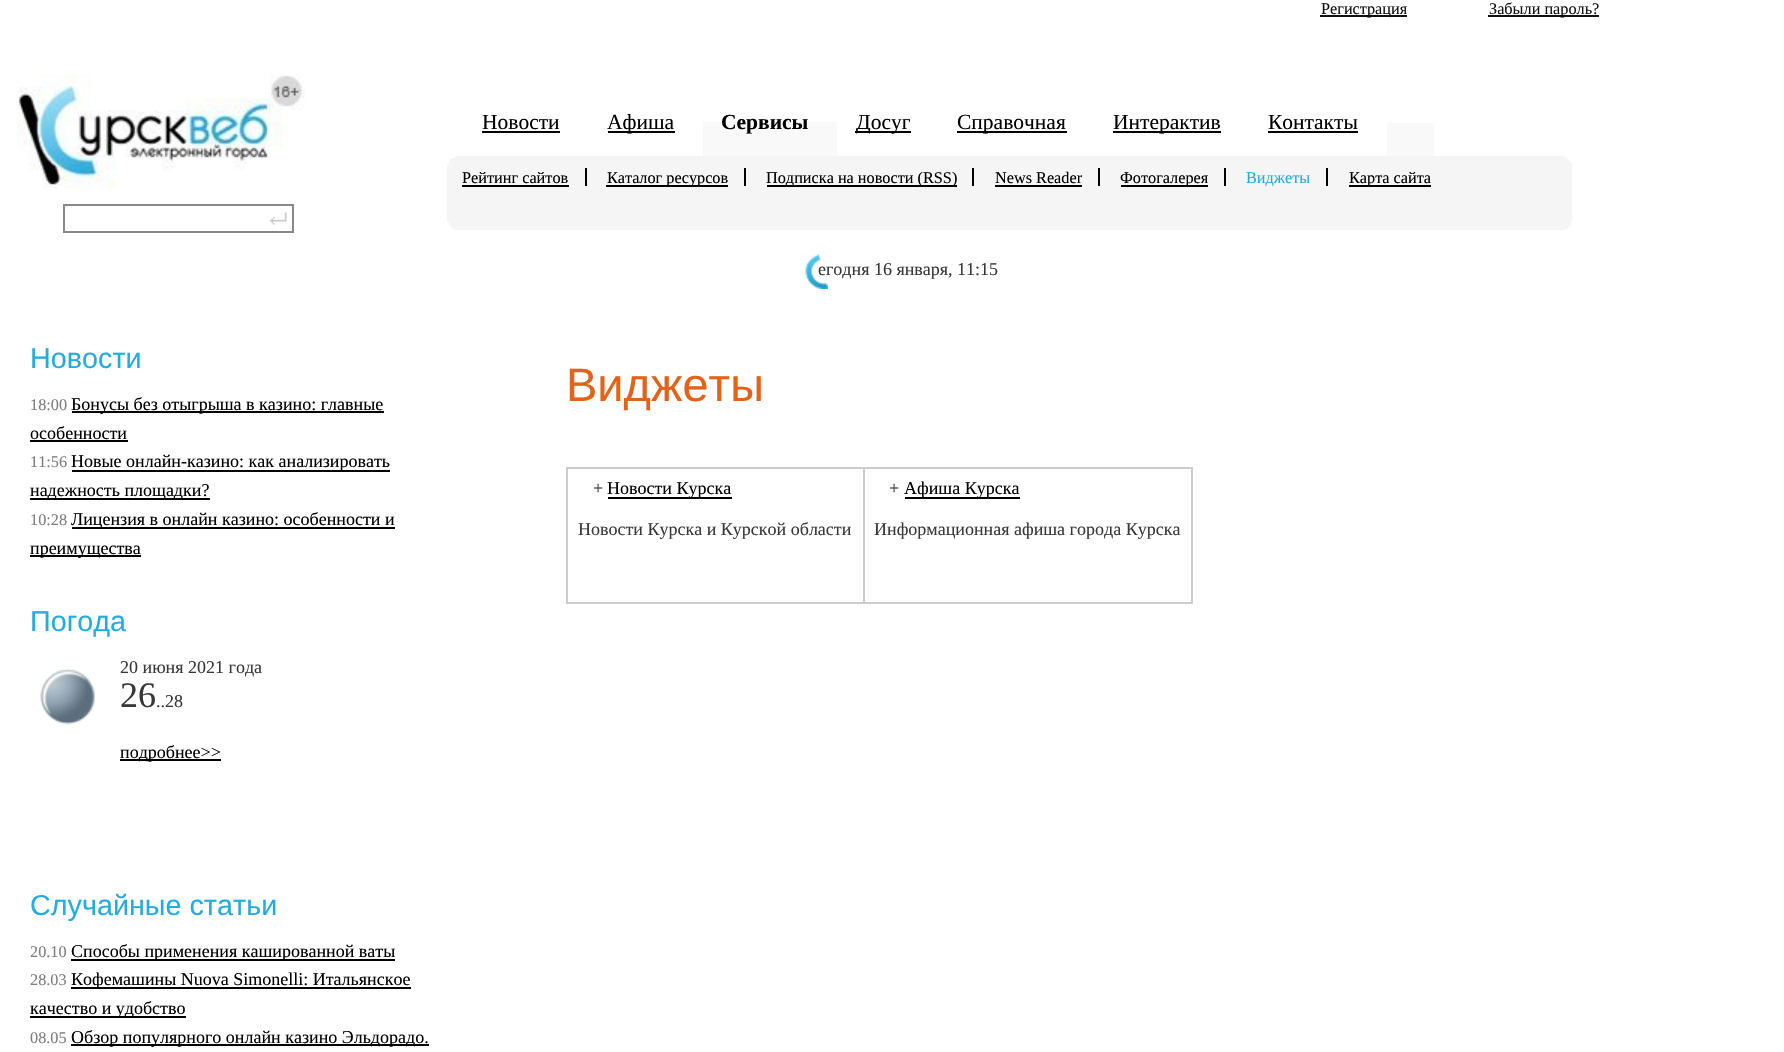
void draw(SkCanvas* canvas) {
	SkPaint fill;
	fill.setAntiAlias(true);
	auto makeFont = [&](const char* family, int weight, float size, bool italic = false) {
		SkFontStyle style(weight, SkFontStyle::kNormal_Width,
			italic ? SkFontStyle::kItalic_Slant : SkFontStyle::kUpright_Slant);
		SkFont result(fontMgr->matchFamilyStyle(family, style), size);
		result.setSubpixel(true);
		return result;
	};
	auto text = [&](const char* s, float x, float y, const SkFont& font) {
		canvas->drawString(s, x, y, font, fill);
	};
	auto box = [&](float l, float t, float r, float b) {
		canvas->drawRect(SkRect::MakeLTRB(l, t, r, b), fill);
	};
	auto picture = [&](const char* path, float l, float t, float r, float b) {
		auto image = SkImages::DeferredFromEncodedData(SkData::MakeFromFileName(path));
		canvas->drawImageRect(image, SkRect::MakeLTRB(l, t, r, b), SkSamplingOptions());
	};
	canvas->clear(0xFFFFFFFF);
	fill.setColor(0xFF111111);
	box(1320, 15, 1407, 17);
	box(1488, 15, 1599, 17);
	picture("image0.png", 18, 74, 305, 189);
	picture("image1.png", 270, 212, 287, 225);
	fill.setStyle(SkPaint::kStroke_Style);
	fill.setStrokeWidth(2);
	fill.setColor(0xFF888888);
	canvas->drawRect(SkRect::MakeLTRB(64, 205, 293, 232), fill);
	fill.setStyle(SkPaint::kFill_Style);
	fill.setColor(0xFF000000);
	box(482, 131, 560, 133);
	box(608, 131, 675, 133);
	fill.setColor(0xFFF9F9F9);
	box(703, 122, 837, 156);
	fill.setColor(0xFF000000);
	box(855, 131, 911, 133);
	box(957, 131, 1067, 133);
	box(1113, 131, 1221, 133);
	box(1268, 131, 1358, 133);
	fill.setColor(0xFFF9F9F9);
	box(1387, 123, 1434, 156);
	fill.setColor(0xFFF5F5F5);
	box(447, 164, 1572, 222);
	box(455, 156, 1565, 158);
	box(452, 158, 1568, 159);
	box(450, 159, 1569, 161);
	box(449, 161, 1571, 164);
	fill.setColor(0xFF000000);
	box(585, 168, 587, 186);
	box(462, 185, 569, 187);
	box(744, 168, 746, 186);
	box(606, 185, 728, 187);
	box(972, 168, 974, 186);
	box(767, 185, 957, 187);
	box(1098, 168, 1100, 186);
	box(995, 185, 1082, 187);
	box(1224, 168, 1226, 186);
	box(1121, 185, 1208, 187);
	box(1326, 168, 1328, 186);
	box(1349, 185, 1431, 187);
	fill.setColor(0xFFF5F5F5);
	box(449, 222, 1571, 225);
	box(450, 225, 1569, 227);
	box(452, 227, 1568, 229);
	box(455, 229, 1565, 230);
	picture("image2.png", 805, 254, 828, 289);
	fill.setColor(0xFF000000);
	box(72, 411, 384, 413);
	box(30, 440, 128, 442);
	box(72, 470, 390, 472);
	box(30, 498, 210, 500);
	box(72, 527, 395, 529);
	box(30, 555, 141, 557);
	picture("image3.png", 40, 668, 95, 725);
	box(120, 759, 221, 761);
	fill.setColor(0xFFCCCCCC);
	box(566, 467, 1193, 469);
	box(566, 467, 568, 603);
	box(1191, 467, 1193, 603);
	box(863, 602, 1193, 604);
	box(863, 467, 865, 603);
	box(566, 602, 864, 604);
	fill.setColor(0xFF000000);
	box(608, 497, 732, 499);
	box(905, 497, 1020, 499);
	box(71, 959, 395, 961);
	box(71, 987, 411, 989);
	box(30, 1016, 186, 1018);
	box(71, 1044, 429, 1046);
	auto font1 = makeFont("Liberation Serif", 400, 16.25f);
	fill.setColor(0xFF111111);
	text("Регистрация", 1321, 14, font1);
	text("Забыли пароль?", 1489, 14, font1);
	auto font2 = makeFont("Liberation Serif", 400, 21.5f);
	fill.setColor(0xFF000000);
	text("Новости", 482, 129, font2);
	text("Афиша", 607, 129, font2);
	auto font3 = makeFont("Liberation Serif", 700, 21.5f);
	text("Сервисы", 721, 129, font3);
	text("Досуг", 856, 129, font2);
	text("Справочная", 957, 129, font2);
	text("Интерактив", 1113, 129, font2);
	text("Контакты", 1268, 129, font2);
	text("Рейтинг сайтов", 462, 183, font1);
	text("Каталог ресурсов", 607, 183, font1);
	text("Подписка на новости (RSS)", 766, 183, font1);
	text("News Reader", 995, 183, font1);
	text("Фотогалерея", 1120, 183, font1);
	fill.setColor(0xFF25ABDD);
	text("Виджеты", 1246, 183, font1);
	fill.setColor(0xFF000000);
	text("Карта сайта", 1349, 183, font1);
	auto font4 = makeFont("Liberation Serif", 400, 18);
	fill.setColor(0xFF383838);
	text("егодня 16 января, 11:15", 818, 275, font4);
	auto font5 = makeFont("Liberation Sans", 400, 28.75f);
	fill.setColor(0xFF25ABDD);
	text("Новости", 30, 368, font5);
	fill.setColor(0xFF7D7D7D);
	text("18:00", 30, 410, font1);
	fill.setColor(0xFF000000);
	text("Бонусы без отыгрыша в казино: главные", 71, 410, font4);
	text("особенности", 30, 439, font4);
	fill.setColor(0xFF7D7D7D);
	text("11:56", 30, 467, font1);
	fill.setColor(0xFF000000);
	text("Новые онлайн-казино: как анализировать", 71, 467, font4);
	text("надежность площадки?", 30, 496, font4);
	fill.setColor(0xFF7D7D7D);
	text("10:28", 30, 525, font1);
	fill.setColor(0xFF000000);
	text("Лицензия в онлайн казино: особенности и", 71, 525, font4);
	text("преимущества", 30, 554, font4);
	fill.setColor(0xFF25ABDD);
	text("Погода", 30, 631, font5);
	fill.setColor(0xFF383838);
	text("20 июня 2021 года", 120, 673, font4);
	auto font6 = makeFont("Liberation Serif", 400, 36);
	text("26", 120, 707, font6);
	text("..28", 156, 707, font4);
	fill.setColor(0xFF000000);
	text("подробнее>>", 120, 758, font4);
	auto font7 = makeFont("Liberation Sans", 400, 47);
	fill.setColor(0xFFE3631A);
	text("Виджеты", 566, 401, font7);
	fill.setColor(0xFF383838);
	text("+", 593, 494, font4);
	fill.setColor(0xFF000000);
	text("Новости Курска", 607, 494, font4);
	fill.setColor(0xFF383838);
	text("Новости Курска и Курской области", 578, 535, font4);
	text("+", 889, 494, font4);
	fill.setColor(0xFF000000);
	text("Афиша Курска", 904, 494, font4);
	fill.setColor(0xFF383838);
	text("Информационная афиша города Курска", 874, 535, font4);
	fill.setColor(0xFF25ABDD);
	text("Случайные статьи", 30, 915, font5);
	fill.setColor(0xFF7D7D7D);
	text("20.10", 30, 957, font1);
	fill.setColor(0xFF000000);
	text("Способы применения кашированной ваты", 71, 957, font4);
	fill.setColor(0xFF7D7D7D);
	text("28.03", 30, 985, font1);
	fill.setColor(0xFF000000);
	text("Кофемашины Nuova Simonelli: Итальянское", 71, 985, font4);
	text("качество и удобство", 30, 1014, font4);
	fill.setColor(0xFF7D7D7D);
	text("08.05", 30, 1043, font1);
	fill.setColor(0xFF000000);
	text("Обзор популярного онлайн казино Эльдорадо.", 71, 1043, font4);
}
